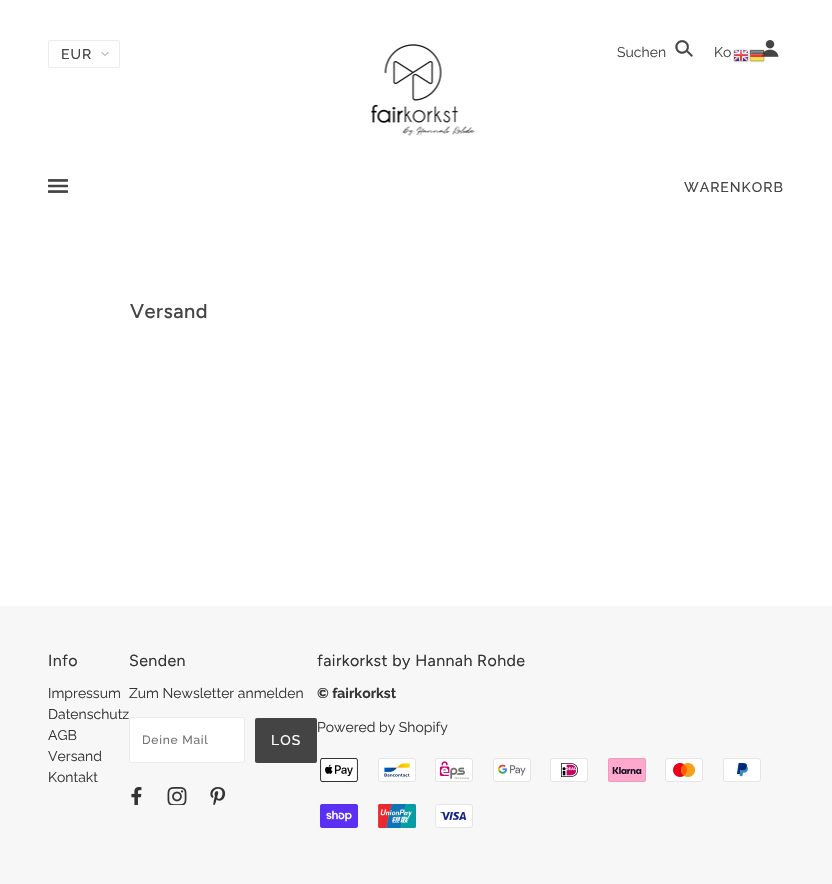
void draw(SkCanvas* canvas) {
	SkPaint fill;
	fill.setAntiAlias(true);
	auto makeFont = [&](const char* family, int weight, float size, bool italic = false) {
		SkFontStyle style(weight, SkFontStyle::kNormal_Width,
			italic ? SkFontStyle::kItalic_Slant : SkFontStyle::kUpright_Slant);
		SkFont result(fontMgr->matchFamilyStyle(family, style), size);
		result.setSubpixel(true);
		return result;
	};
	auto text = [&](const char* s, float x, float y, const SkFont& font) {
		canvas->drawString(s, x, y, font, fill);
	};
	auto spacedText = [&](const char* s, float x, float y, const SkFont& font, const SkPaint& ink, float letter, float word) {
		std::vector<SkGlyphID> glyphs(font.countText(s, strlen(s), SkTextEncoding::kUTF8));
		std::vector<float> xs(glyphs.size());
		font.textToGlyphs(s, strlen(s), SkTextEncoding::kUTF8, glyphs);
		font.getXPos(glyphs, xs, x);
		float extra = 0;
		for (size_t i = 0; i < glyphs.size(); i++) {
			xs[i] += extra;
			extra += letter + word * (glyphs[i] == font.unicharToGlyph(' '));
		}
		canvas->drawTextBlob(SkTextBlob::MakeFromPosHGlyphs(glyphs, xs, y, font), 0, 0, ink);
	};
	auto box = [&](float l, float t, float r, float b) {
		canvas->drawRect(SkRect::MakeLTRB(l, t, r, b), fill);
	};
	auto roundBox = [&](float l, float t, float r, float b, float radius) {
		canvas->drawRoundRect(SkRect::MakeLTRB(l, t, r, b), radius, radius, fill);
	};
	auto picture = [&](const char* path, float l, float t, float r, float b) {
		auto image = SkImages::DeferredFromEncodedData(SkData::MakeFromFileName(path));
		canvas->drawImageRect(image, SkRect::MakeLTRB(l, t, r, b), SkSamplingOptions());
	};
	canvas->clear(0xFFFFFFFF);
	picture("image0.png", 101, 52, 109, 56);
	fill.setStyle(SkPaint::kStroke_Style);
	fill.setStrokeWidth(1);
	fill.setColor(0xFFEBEBEB);
	canvas->drawRoundRect(SkRect::MakeLTRB(48.5f, 40.5f, 119.5f, 67.5f), 1.5f, 1.5f, fill);
	picture("image1.png", 370, 44, 475, 136);
	picture("image2.png", 675, 40, 693, 57);
	picture("image3.png", 761, 40, 779, 57);
	picture("image4.png", 48, 179, 68, 193);
	fill.setStyle(SkPaint::kFill_Style);
	fill.setColor(0xFFF7F7F7);
	box(0, 606, 832, 884);
	fill.setColor(0xFFFFFFFF);
	canvas->drawRoundRect(SkRect::MakeLTRB(129.5f, 717.5f, 244.5f, 762.5f), 1.5f, 1.5f, fill);
	fill.setStyle(SkPaint::kStroke_Style);
	fill.setColor(0xFFEBEBEB);
	canvas->drawRoundRect(SkRect::MakeLTRB(129.5f, 717.5f, 244.5f, 762.5f), 1.5f, 1.5f, fill);
	fill.setStyle(SkPaint::kFill_Style);
	fill.setColor(0xFF444444);
	roundBox(255, 718, 317, 763, 2);
	picture("image5.png", 131, 787, 142, 805);
	picture("image6.png", 167, 787, 187, 805);
	picture("image7.png", 210, 787, 226, 805);
	picture("image8.png", 320, 758, 358, 782);
	picture("image9.png", 378, 758, 416, 782);
	picture("image10.png", 435, 758, 473, 782);
	picture("image11.png", 493, 758, 531, 782);
	picture("image12.png", 550, 758, 588, 782);
	picture("image13.png", 608, 758, 646, 782);
	picture("image14.png", 665, 758, 703, 782);
	picture("image15.png", 723, 758, 761, 782);
	picture("image16.png", 320, 804, 358, 828);
	picture("image17.png", 378, 804, 416, 828);
	picture("image18.png", 435, 804, 473, 828);
	picture("image19.png", 733, 49, 749, 63);
	picture("image20.png", 749, 49, 765, 63);
	auto font1 = makeFont("Raleway", 500, 14);
	spacedText("EUR", 61, 59, font1, fill, 1, 0);
	auto font2 = makeFont("Raleway", 400, 14);
	text("Suchen", 617, 57, font2);
	text("Ko", 714, 57, font2);
	spacedText("WARENKORB", 684, 192, font1, fill, 1, 0);
	auto font3 = makeFont("Figtree", 500, 20);
	spacedText("Versand", 130, 318, font3, fill, 0.5f, 0);
	auto font4 = makeFont("Figtree", 400, 16);
	fill.setColor(0xFF333333);
	spacedText("Info", 48, 666, font4, fill, 0.4f, 0);
	text("Impressum", 48, 698, font2);
	text("Datenschutz", 48, 719, font2);
	text("AGB", 48, 740, font2);
	text("Versand", 48, 761, font2);
	text("Kontakt", 48, 782, font2);
	spacedText("Senden", 129, 666, font4, fill, 0.4f, 0);
	text("Zum Newsletter anmelden", 129, 698, font2);
	auto font5 = makeFont("Raleway", 500, 12);
	fill.setColor(0xFF757575);
	spacedText("Deine Mail", 142, 744, font5, fill, 0.75f, 0);
	fill.setColor(0xFFFFFFFF);
	spacedText("LOS", 271, 745, font1, fill, 1, 0);
	fill.setColor(0xFF333333);
	spacedText("fairkorkst by Hannah Rohde", 317, 666, font4, fill, 0.4f, 0);
	auto font6 = makeFont("Raleway", 700, 14);
	text("© fairkorkst", 317, 698, font6);
	text("Powered by Shopify", 317, 732, font2);
}
